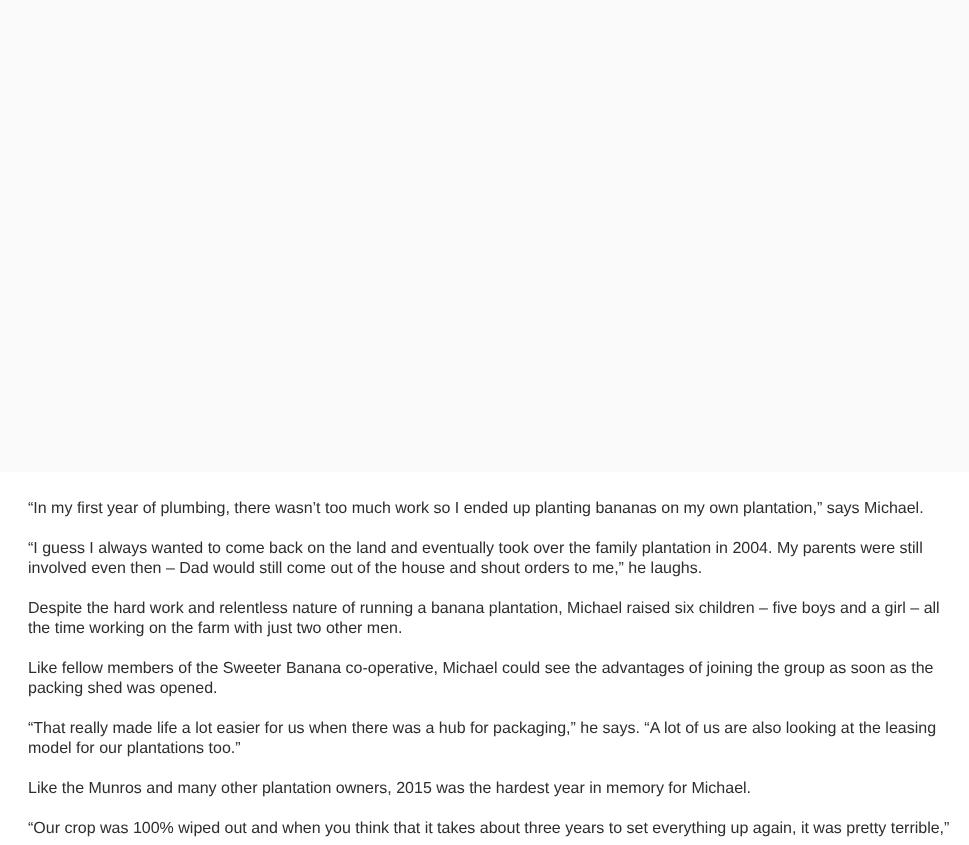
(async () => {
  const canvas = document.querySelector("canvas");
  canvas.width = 969;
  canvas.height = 845;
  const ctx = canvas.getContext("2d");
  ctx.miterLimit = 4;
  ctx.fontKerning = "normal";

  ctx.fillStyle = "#ffffff";
  ctx.fillRect(0, 0, 969, 845);
  ctx.fillStyle = "#fafafa";
  ctx.fillRect(0, 0, 969, 472);
  ctx.font = "16px Liberation Sans";
  ctx.fillStyle = "#2f2e2e";
  for (const [text, x, y] of [
    ["“In my first year of plumbing, there wasn’t too much work so I ended up planting bananas on my own plantation,” says Michael.", 28, 513],
    ["“I guess I always wanted to come back on the land and eventually took over the family plantation in 2004. My parents were still", 28, 553],
    ["involved even then – Dad would still come out of the house and shout orders to me,” he laughs.", 28, 573],
    ["Despite the hard work and relentless nature of running a banana plantation, Michael raised six children – five boys and a girl – all", 28, 613],
    ["the time working on the farm with just two other men.", 28, 633],
    ["Like fellow members of the Sweeter Banana co-operative, Michael could see the advantages of joining the group as soon as the", 28, 673],
    ["packing shed was opened.", 28, 693],
    ["“That really made life a lot easier for us when there was a hub for packaging,” he says. “A lot of us are also looking at the leasing", 28, 733],
    ["model for our plantations too.”", 28, 753],
    ["Like the Munros and many other plantation owners, 2015 was the hardest year in memory for Michael.", 28, 793],
    ["“Our crop was 100% wiped out and when you think that it takes about three years to set everything up again, it was pretty terrible,”", 28, 833],
  ]) {
    ctx.fillText(text, x, y);
  }
})();
